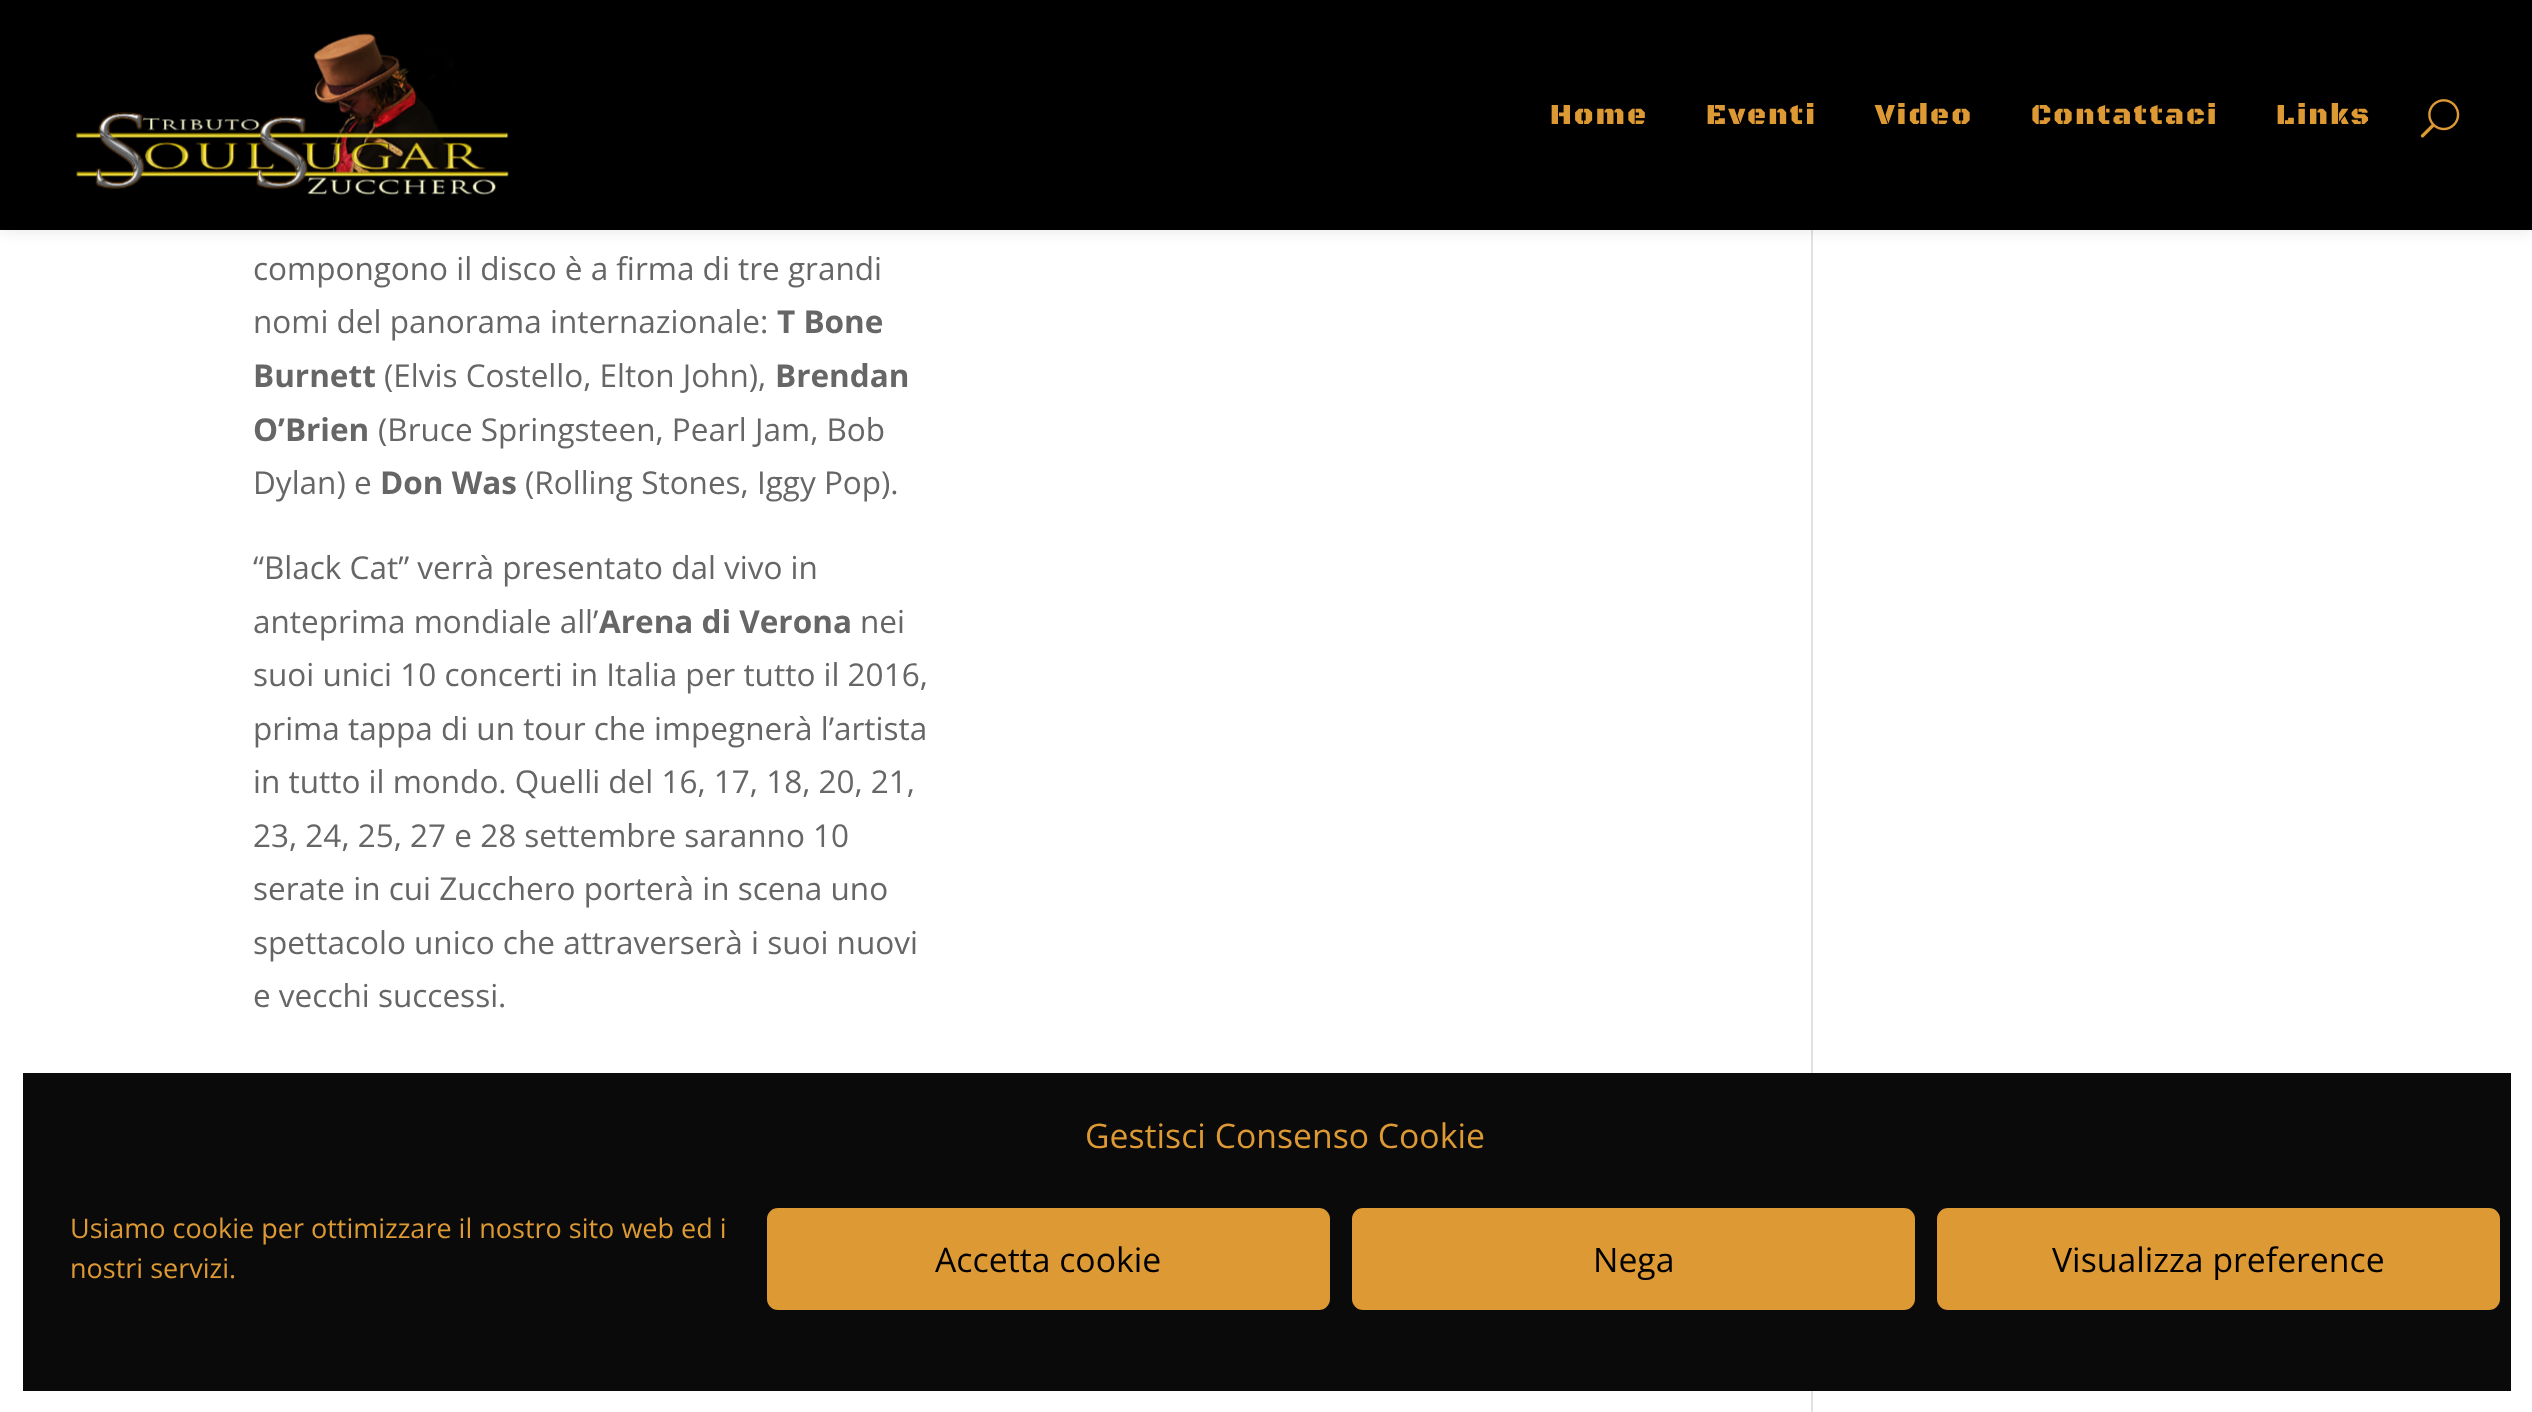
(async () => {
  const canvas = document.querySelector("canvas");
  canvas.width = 2532;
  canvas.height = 1412;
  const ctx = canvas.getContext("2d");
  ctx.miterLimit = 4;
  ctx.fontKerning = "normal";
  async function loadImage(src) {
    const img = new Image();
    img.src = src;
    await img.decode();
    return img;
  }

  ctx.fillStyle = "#ffffff";
  ctx.fillRect(0, 0, 2532, 1412);
  ctx.fillStyle = "#e2e2e2";
  ctx.fillRect(1811, 230, 2, 1182);
  ctx.fillStyle = "rgba(0, 0, 0, 0.1)";
  ctx.filter = "blur(8px)";
  ctx.beginPath();
  ctx.rect(0, 0, 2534, 230);
  ctx.fill();
  ctx.filter = "none";
  ctx.fillStyle = "#000000";
  ctx.fillRect(0, 0, 2532, 230);
  ctx.drawImage(await loadImage("img/1.png"), 76, 33, 433, 162);
  ctx.drawImage(await loadImage("img/2.png"), 2420, 99, 40, 39);
  ctx.fillStyle = "#0a0a0a";
  ctx.fillRect(23, 1073, 2488, 318);
  ctx.fillStyle = "#dd9933";
  ctx.beginPath();
  ctx.roundRect(768, 1209, 561, 100, 10);
  ctx.fill();
  ctx.strokeStyle = "#dd9933";
  ctx.lineWidth = 2;
  ctx.stroke();
  ctx.beginPath();
  ctx.roundRect(1353, 1209, 561, 100, 10);
  ctx.fill();
  ctx.stroke();
  ctx.beginPath();
  ctx.roundRect(1938, 1209, 561, 100, 10);
  ctx.fill();
  ctx.stroke();
  ctx.letterSpacing = "2.25px";
  ctx.font = "900 29.25px Black Ops One";
  for (const [text, x, y] of [
    ["Home", 1550, 124],
    ["Eventi", 1706, 124],
    ["Video", 1875, 124],
    ["Contattaci", 2031, 124],
    ["Links", 2276, 124],
  ]) {
    ctx.fillText(text, x, y);
  }
  ctx.letterSpacing = "0px";
  ctx.font = "31.5px Open Sans";
  ctx.fillStyle = "#666666";
  ctx.fillText("compongono il disco è a firma di tre grandi", 253, 280);
  ctx.fillText("nomi del panorama internazionale:", 253, 333);
  ctx.font = "bold 31.5px Open Sans";
  ctx.fillText("T Bone", 777, 333);
  ctx.fillText("Burnett", 253, 387);
  ctx.font = "31.5px Open Sans";
  ctx.fillText("(Elvis Costello, Elton John),", 384, 387);
  ctx.font = "bold 31.5px Open Sans";
  ctx.fillText("Brendan", 775, 387);
  ctx.fillText("O’Brien", 253, 441);
  ctx.font = "31.5px Open Sans";
  ctx.fillText("(Bruce Springsteen, Pearl Jam, Bob", 378, 441);
  ctx.fillText("Dylan) e", 253, 494);
  ctx.font = "bold 31.5px Open Sans";
  ctx.fillText("Don Was", 380, 494);
  ctx.font = "31.5px Open Sans";
  for (const [text, x, y] of [
    ["(Rolling Stones, Iggy Pop).", 525, 494],
    ["“Black Cat” verrà presentato dal vivo in", 253, 579],
    ["anteprima mondiale all’", 253, 633],
  ]) {
    ctx.fillText(text, x, y);
  }
  ctx.font = "bold 31.5px Open Sans";
  ctx.fillText("Arena di Verona", 599, 633);
  ctx.font = "31.5px Open Sans";
  for (const [text, x, y] of [
    ["nei", 860, 633],
    ["suoi unici 10 concerti in Italia per tutto il 2016,", 253, 686],
    ["prima tappa di un tour che impegnerà l’artista", 253, 740],
    ["in tutto il mondo. Quelli del 16, 17, 18, 20, 21,", 253, 793],
    ["23, 24, 25, 27 e 28 settembre saranno 10", 253, 847],
    ["serate in cui Zucchero porterà in scena uno", 253, 900],
    ["spettacolo unico che attraverserà i suoi nuovi", 253, 954],
    ["e vecchi successi.", 253, 1007],
  ]) {
    ctx.fillText(text, x, y);
  }
  ctx.font = "33.75px Open Sans";
  ctx.fillStyle = "#dd9933";
  ctx.fillText("Gestisci Consenso Cookie", 1085, 1148);
  ctx.font = "27px Open Sans";
  ctx.fillText("Usiamo cookie per ottimizzare il nostro sito web ed i", 70, 1238);
  ctx.fillText("nostri servizi.", 70, 1278);
  ctx.font = "33.75px Open Sans";
  ctx.fillStyle = "#000000";
  for (const [text, x, y] of [
    ["Accetta cookie", 935, 1272],
    ["Nega", 1593, 1272],
    ["Visualizza preference", 2052, 1272],
  ]) {
    ctx.fillText(text, x, y);
  }
})();
